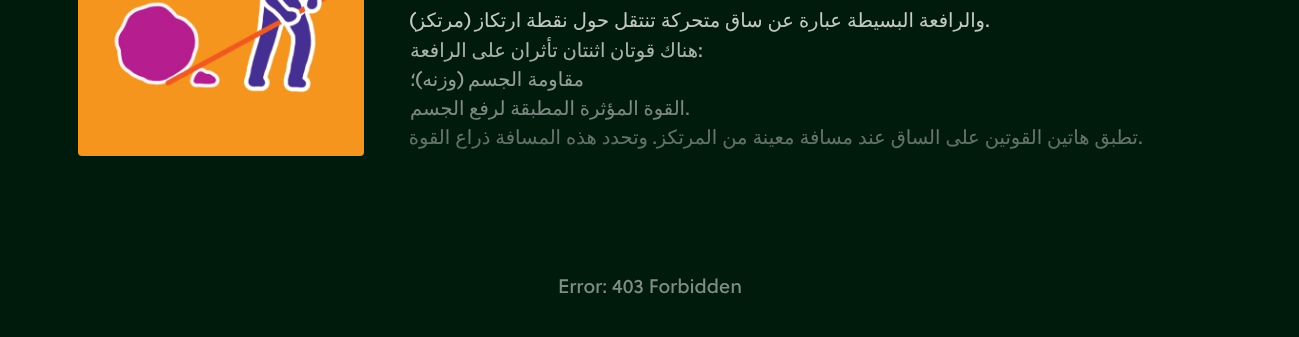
(async () => {
  const canvas = document.querySelector("canvas");
  canvas.width = 1299;
  canvas.height = 337;
  const ctx = canvas.getContext("2d");
  ctx.miterLimit = 4;
  ctx.fontKerning = "normal";
  async function loadImage(src) {
    const img = new Image();
    img.src = src;
    await img.decode();
    return img;
  }
  let gradient;

  ctx.fillStyle = "#001a0c";
  ctx.fillRect(0, 0, 1299, 337);
  ctx.drawImage(await loadImage("img/1.png"), 78, 0, 286, 156);
  ctx.font = "19.5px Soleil";
  ctx.fillStyle = "#ffffff";
  ctx.fillText(".", 985, 27);
  ctx.wordSpacing = "-1.25px";
  ctx.direction = "rtl";
  ctx.font = "19.5px DejaVu Sans";
  ctx.fillText("والرافعة البسيطة عبارة عن ساق متحركة تنتقل حول نقطة ارتكاز", 985, 27);
  ctx.wordSpacing = "0px";
  ctx.font = "19.5px Soleil";
  ctx.fillText("(", 471, 27);
  ctx.fillText(")", 416, 27);
  ctx.font = "19.5px DejaVu Sans";
  ctx.fillText("مرتكز", 464, 27);
  ctx.direction = "ltr";
  ctx.font = "19.5px Soleil";
  ctx.fillText(":", 698, 57);
  ctx.wordSpacing = "-1.5px";
  ctx.direction = "rtl";
  ctx.font = "19.5px DejaVu Sans";
  ctx.fillText("هناك قوتان اثنتان تأثران على الرافعة", 698, 57);
  ctx.wordSpacing = "-1px";
  ctx.fillText("مقاومة الجسم", 584, 86);
  ctx.wordSpacing = "0px";
  ctx.font = "19.5px Soleil";
  ctx.fillText("(", 464, 86);
  ctx.font = "19.5px DejaVu Sans";
  ctx.fillText("وزنه", 457, 86);
  ctx.font = "19.5px Soleil";
  ctx.fillText(")", 422, 86);
  ctx.font = "19.5px DejaVu Sans";
  ctx.fillText("؛", 416, 86);
  ctx.direction = "ltr";
  ctx.font = "19.5px Soleil";
  ctx.fillText(".", 685, 115);
  ctx.wordSpacing = "-1.5px";
  ctx.direction = "rtl";
  ctx.font = "19.5px DejaVu Sans";
  ctx.fillText("القوة المؤثرة المطبقة لرفع الجسم", 685, 115);
  ctx.wordSpacing = "0px";
  ctx.direction = "ltr";
  ctx.font = "19.5px Soleil";
  ctx.fillText(".", 1138, 144);
  ctx.wordSpacing = "-1.25px";
  ctx.direction = "rtl";
  ctx.font = "19.5px DejaVu Sans";
  ctx.fillText("تطبق هاتين القوتين على الساق عند مسافة معينة من المرتكز", 1138, 144);
  ctx.wordSpacing = "0px";
  ctx.font = "19.5px Soleil";
  ctx.fillText(".", 657, 144);
  ctx.wordSpacing = "-1.25px";
  ctx.font = "19.5px DejaVu Sans";
  ctx.fillText("وتحدد هذه المسافة ذراع القوة", 648, 144);
  gradient = ctx.createLinearGradient(815, 260, 815, -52);
  gradient.addColorStop(0, "#001a0c");
  gradient.addColorStop(1, "rgba(0, 26, 12, 0)");
  ctx.fillStyle = gradient;
  ctx.fillRect(409, 11, 733, 138);
  ctx.wordSpacing = "0px";
  ctx.direction = "ltr";
  ctx.font = "19.5px Soleil";
  ctx.fillStyle = "#808d86";
  ctx.fillText("Error: 403 Forbidden", 558, 293);
})();
